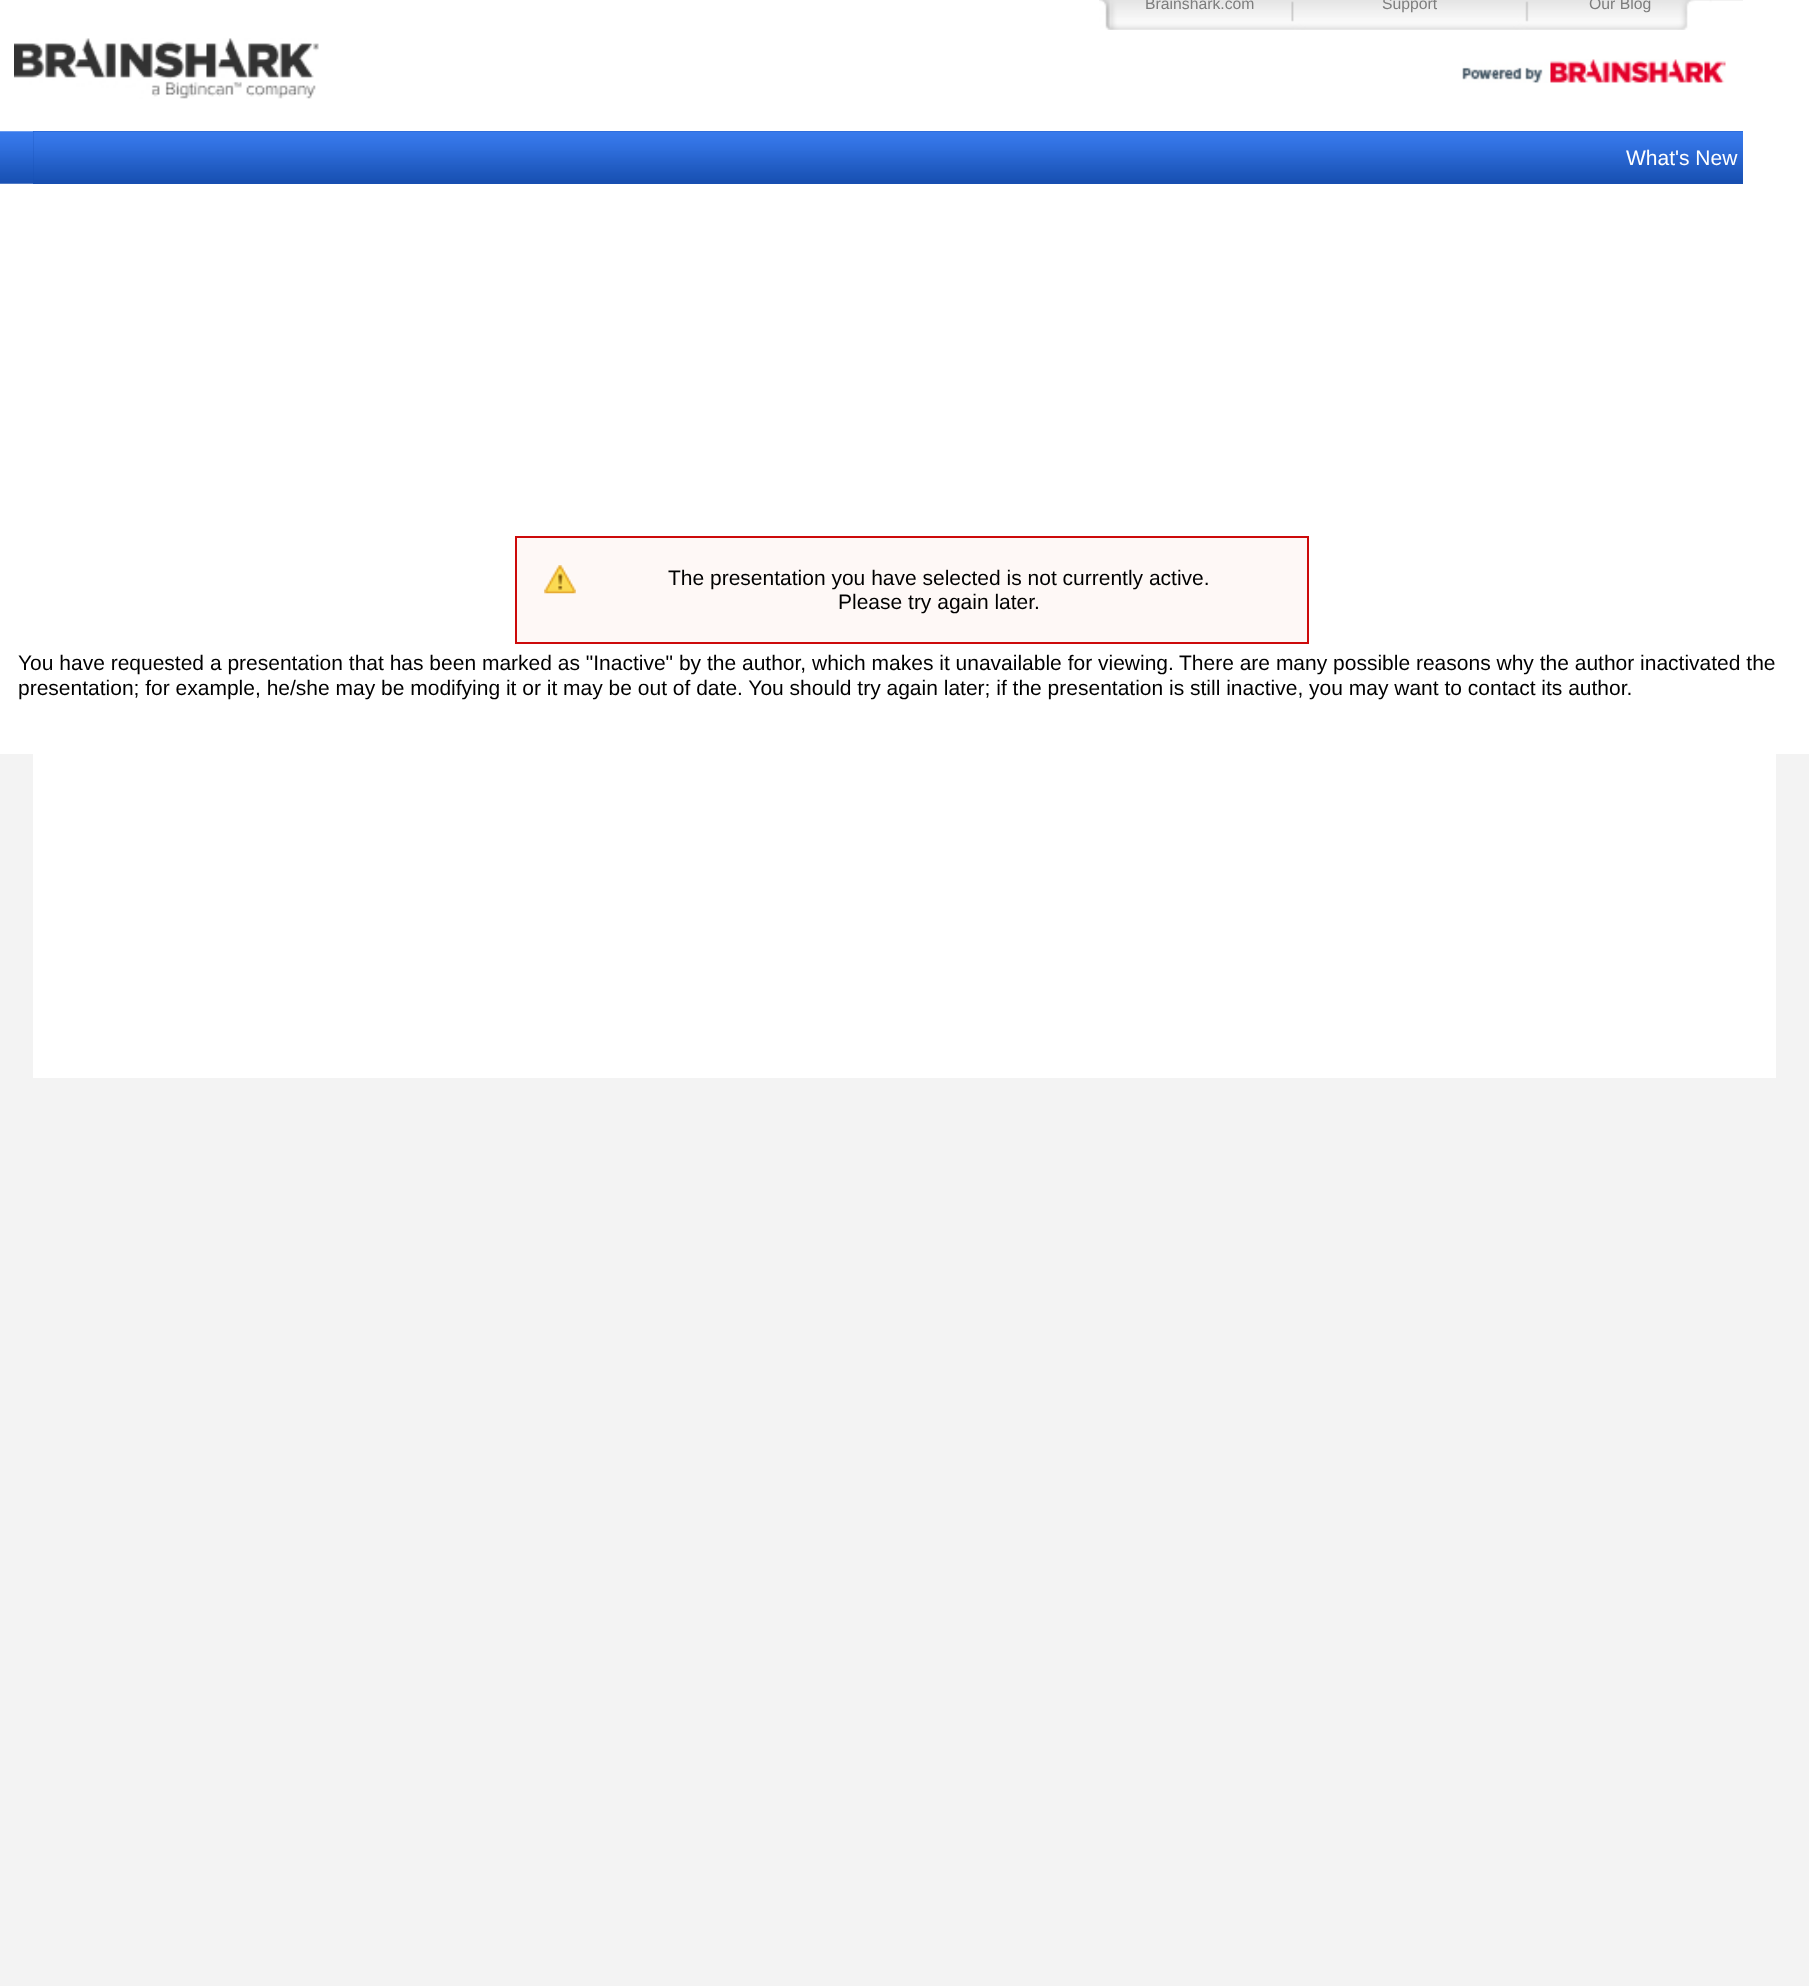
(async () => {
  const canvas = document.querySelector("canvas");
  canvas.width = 1809;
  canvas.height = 1986;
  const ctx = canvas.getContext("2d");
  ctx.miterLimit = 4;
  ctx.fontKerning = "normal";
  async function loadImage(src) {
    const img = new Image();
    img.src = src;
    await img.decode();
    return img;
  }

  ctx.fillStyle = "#f3f3f3";
  ctx.fillRect(0, 0, 1809, 1986);
  ctx.fillStyle = "#ffffff";
  ctx.fillRect(0, 0, 1809, 754);
  ctx.drawImage(await loadImage("img/1.png"), 1099, 0, 644, 30);
  ctx.drawImage(await loadImage("img/2.png"), 14, 38, 305, 61);
  ctx.drawImage(await loadImage("img/3.png"), 1462, 59, 264, 24);
  ctx.drawImage(await loadImage("img/4.png"), 0, 131, 33, 53);
  ctx.fillStyle = "#174fb1";
  ctx.fillRect(33, 131, 1710, 53);
  ctx.drawImage(await loadImage("img/5.png"), 33, 131, 1710, 49);
  ctx.fillStyle = "#fef8f6";
  ctx.fillRect(517, 538, 790, 104);
  ctx.drawImage(await loadImage("img/6.png"), 544, 565, 32, 29);
  ctx.strokeStyle = "#cd0a0a";
  ctx.lineWidth = 2;
  ctx.strokeRect(516, 537, 792, 106);
  ctx.fillStyle = "#ffffff";
  ctx.fillRect(33, 754, 1743, 324);
  ctx.font = "15.75px Liberation Sans";
  ctx.fillStyle = "#7d7d7d";
  for (const [text, x, y] of [
    ["Brainshark.com", 1145, 9],
    ["Support", 1382, 9],
    ["Our Blog", 1589, 9],
  ]) {
    ctx.fillText(text, x, y);
  }
  ctx.font = "21px Liberation Sans";
  ctx.fillStyle = "#ffffff";
  ctx.fillText("What's New", 1626, 165);
  ctx.fillStyle = "#000000";
  for (const [text, x, y] of [
    ["The presentation you have selected is not currently active.", 668, 585],
    ["Please try again later.", 838, 609],
    ["You have requested a presentation that has been marked as \"Inactive\" by the author, which makes it unavailable for viewing.", 18, 670],
    ["There are many possible reasons why the author inactivated the", 1179, 670],
    ["presentation; for example, he/she may be modifying it or it may be out of date. You should try again later; if the presentation is still inactive, you may want to contact its author.", 18, 695],
  ]) {
    ctx.fillText(text, x, y);
  }
})();
